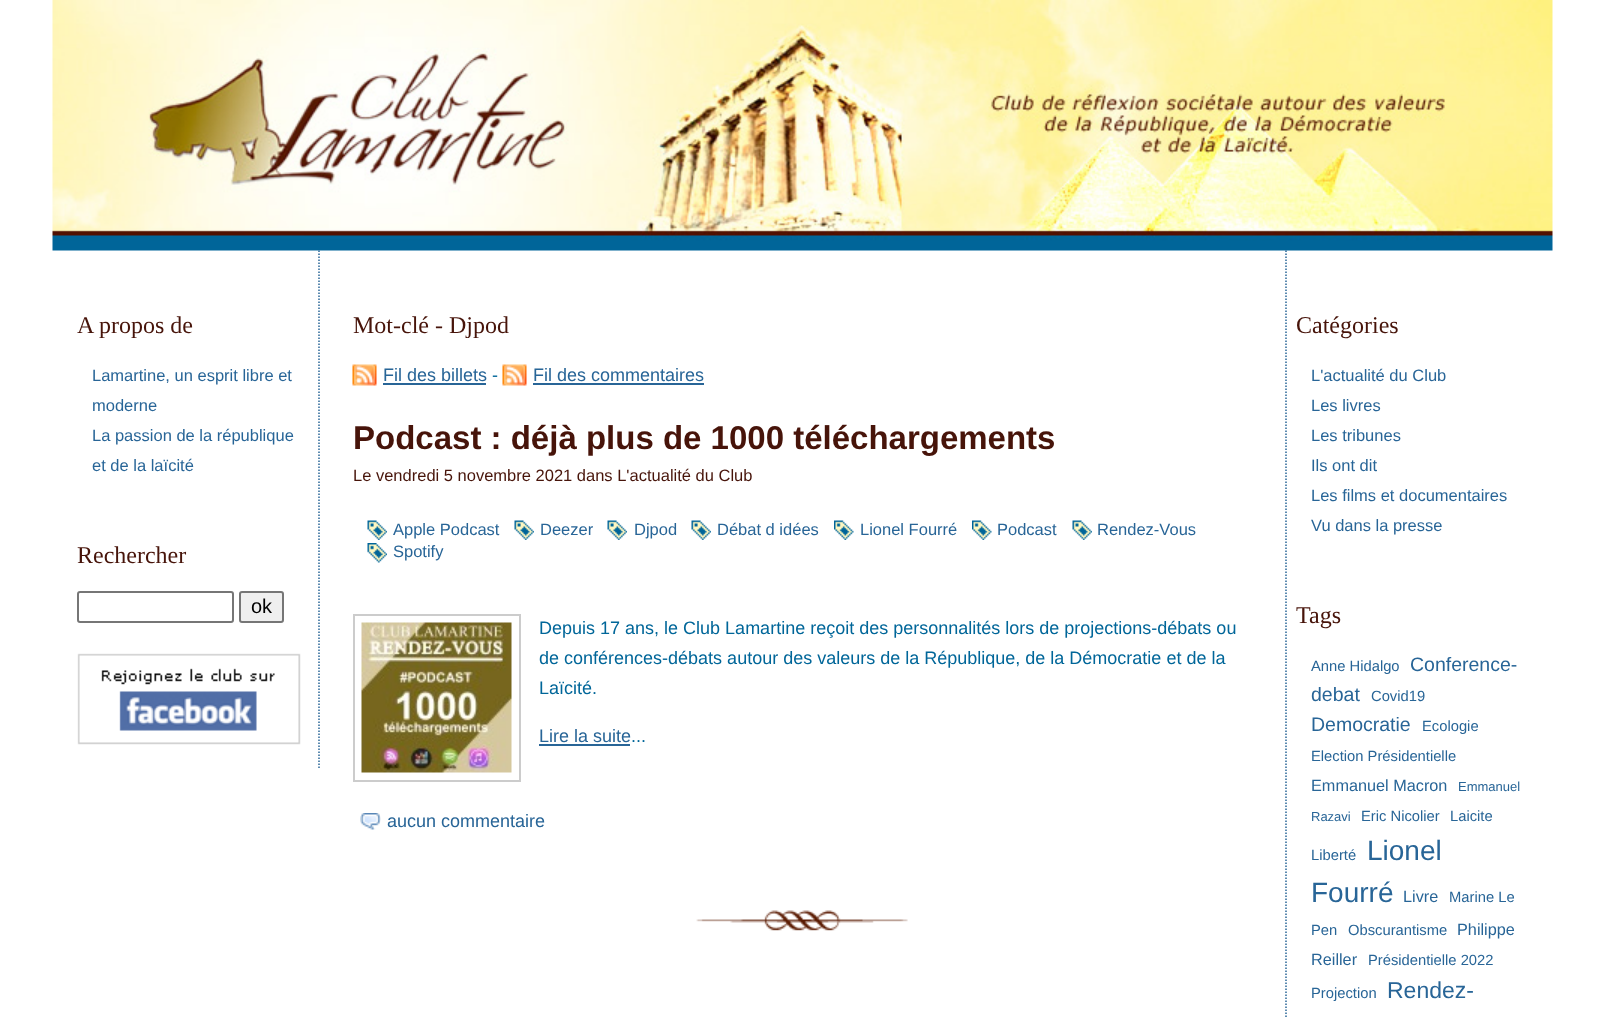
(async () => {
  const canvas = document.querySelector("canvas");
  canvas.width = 1605;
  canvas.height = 1017;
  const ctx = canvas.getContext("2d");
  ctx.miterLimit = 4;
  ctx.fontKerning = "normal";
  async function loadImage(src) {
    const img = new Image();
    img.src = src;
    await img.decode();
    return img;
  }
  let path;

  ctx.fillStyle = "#ffffff";
  ctx.fillRect(0, 0, 1605, 1017);
  ctx.drawImage(await loadImage("img/1.png"), 52, 0, 1501, 251);
  path = new Path2D("M319 250.5V768");
  ctx.strokeStyle = "#286597";
  ctx.lineWidth = 1.5;
  ctx.setLineDash([1.5, 1.5]);
  ctx.stroke(path);
  ctx.beginPath();
  ctx.roundRect(78, 592, 155, 30, 2);
  ctx.strokeStyle = "#767676";
  ctx.lineWidth = 2;
  ctx.setLineDash([]);
  ctx.stroke();
  ctx.fillStyle = "#efefef";
  ctx.beginPath();
  ctx.roundRect(240, 592, 43, 30, 2);
  ctx.fill();
  ctx.stroke();
  ctx.drawImage(await loadImage("img/2.png"), 77, 653, 224, 92);
  path = new Path2D("M1286 250.5V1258.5");
  ctx.strokeStyle = "#286597";
  ctx.lineWidth = 1.5;
  ctx.setLineDash([1.5, 1.5]);
  ctx.stroke(path);
  ctx.drawImage(await loadImage("img/3.png"), 352, 364, 25, 22);
  ctx.fillStyle = "#286597";
  ctx.fillRect(383, 383, 103, 2);
  ctx.drawImage(await loadImage("img/4.png"), 502, 364, 25, 22);
  ctx.fillRect(533, 383, 171, 2);
  ctx.drawImage(await loadImage("img/5.png"), 696, 910, 212, 21);
  ctx.drawImage(await loadImage("img/6.png"), 367, 520, 20, 20);
  ctx.drawImage(await loadImage("img/7.png"), 514, 520, 20, 20);
  ctx.drawImage(await loadImage("img/6.png"), 607, 520, 20, 20);
  ctx.drawImage(await loadImage("img/6.png"), 691, 520, 20, 20);
  ctx.drawImage(await loadImage("img/8.png"), 834, 520, 20, 20);
  ctx.drawImage(await loadImage("img/8.png"), 972, 520, 20, 20);
  ctx.drawImage(await loadImage("img/9.png"), 1072, 520, 20, 20);
  ctx.drawImage(await loadImage("img/10.png"), 367, 543, 20, 20);
  ctx.strokeStyle = "#cccccc";
  ctx.lineWidth = 2;
  ctx.setLineDash([]);
  ctx.strokeRect(354, 615, 166, 166);
  ctx.drawImage(await loadImage("img/11.png"), 361, 622, 151, 151);
  ctx.fillRect(539, 744, 91, 2);
  ctx.drawImage(await loadImage("img/12.png"), 360, 813, 21, 17);
  ctx.font = "24px Liberation Serif";
  ctx.fillStyle = "#47140a";
  ctx.fillText("A propos de", 77, 333);
  ctx.font = "16.5px Liberation Sans";
  ctx.fillStyle = "#286597";
  for (const [text, x, y] of [
    ["Lamartine, un esprit libre et", 92, 381],
    ["moderne", 92, 411],
    ["La passion de la république", 92, 441],
    ["et de la laïcité", 92, 471],
  ]) {
    ctx.fillText(text, x, y);
  }
  ctx.font = "24px Liberation Serif";
  ctx.fillStyle = "#47140a";
  ctx.fillText("Rechercher", 77, 563);
  ctx.font = "20px Liberation Sans";
  ctx.fillStyle = "#000000";
  ctx.fillText("ok", 251, 613);
  ctx.font = "24px Liberation Serif";
  ctx.fillStyle = "#47140a";
  ctx.fillText("Catégories", 1296, 333);
  ctx.font = "16.5px Liberation Sans";
  ctx.fillStyle = "#286597";
  for (const [text, x, y] of [
    ["L'actualité du Club", 1311, 381],
    ["Les livres", 1311, 411],
    ["Les tribunes", 1311, 441],
    ["Ils ont dit", 1311, 471],
    ["Les films et documentaires", 1311, 501],
    ["Vu dans la presse", 1311, 531],
  ]) {
    ctx.fillText(text, x, y);
  }
  ctx.font = "24px Liberation Serif";
  ctx.fillStyle = "#47140a";
  ctx.fillText("Tags", 1296, 623);
  ctx.font = "14.75px Liberation Sans";
  ctx.fillStyle = "#286597";
  ctx.fillText("Anne Hidalgo", 1311, 671);
  ctx.font = "19.5px Liberation Sans";
  ctx.fillText("Conference-", 1410, 671);
  ctx.fillText("debat", 1311, 701);
  ctx.font = "14.75px Liberation Sans";
  ctx.fillText("Covid19", 1371, 701);
  ctx.font = "19.5px Liberation Sans";
  ctx.fillText("Democratie", 1311, 731);
  ctx.font = "14.75px Liberation Sans";
  ctx.fillText("Ecologie", 1422, 731);
  ctx.fillText("Election Présidentielle", 1311, 761);
  ctx.font = "16.25px Liberation Sans";
  ctx.fillText("Emmanuel Macron", 1311, 791);
  ctx.font = "13px Liberation Sans";
  ctx.fillText("Emmanuel", 1458, 791);
  ctx.fillText("Razavi", 1311, 821);
  ctx.font = "14.75px Liberation Sans";
  for (const [text, x, y] of [
    ["Eric Nicolier", 1361, 821],
    ["Laicite", 1450, 821],
    ["Liberté", 1311, 860],
  ]) {
    ctx.fillText(text, x, y);
  }
  ctx.font = "28px Liberation Sans";
  ctx.fillText("Lionel", 1367, 860);
  ctx.fillText("Fourré", 1311, 902);
  ctx.font = "16.25px Liberation Sans";
  ctx.fillText("Livre", 1403, 902);
  ctx.font = "14.75px Liberation Sans";
  for (const [text, x, y] of [
    ["Marine Le", 1449, 902],
    ["Pen", 1311, 935],
    ["Obscurantisme", 1348, 935],
  ]) {
    ctx.fillText(text, x, y);
  }
  ctx.font = "16.25px Liberation Sans";
  ctx.fillText("Philippe", 1457, 935);
  ctx.fillText("Reiller", 1311, 965);
  ctx.font = "14.75px Liberation Sans";
  ctx.fillText("Présidentielle 2022", 1368, 965);
  ctx.fillText("Projection", 1311, 998);
  ctx.font = "23px Liberation Sans";
  ctx.fillText("Rendez-", 1387, 998);
  ctx.font = "24px Liberation Serif";
  ctx.fillStyle = "#47140a";
  ctx.fillText("Mot-clé - Djpod", 353, 333);
  ctx.font = "18px Liberation Sans";
  ctx.fillStyle = "#286597";
  ctx.fillText("Fil des billets", 383, 381);
  ctx.fillStyle = "#006699";
  ctx.fillText("-", 492, 381);
  ctx.fillStyle = "#286597";
  ctx.fillText("Fil des commentaires", 533, 381);
  ctx.font = "bold 33px Liberation Sans";
  ctx.fillStyle = "#47140a";
  ctx.fillText("Podcast : déjà plus de 1000 téléchargements", 353, 449);
  ctx.font = "16.5px Liberation Sans";
  ctx.fillText("Le vendredi 5 novembre 2021 dans L'actualité du Club", 353, 481);
  ctx.fillStyle = "#286597";
  for (const [text, x, y] of [
    ["Apple Podcast", 393, 535],
    ["Deezer", 540, 535],
    ["Djpod", 634, 535],
    ["Débat d idées", 717, 535],
    ["Lionel Fourré", 860, 535],
    ["Podcast", 997, 535],
    ["Rendez-Vous", 1097, 535],
    ["Spotify", 393, 557],
  ]) {
    ctx.fillText(text, x, y);
  }
  ctx.font = "18px Liberation Sans";
  ctx.fillStyle = "#006699";
  for (const [text, x, y] of [
    ["Depuis 17 ans, le Club Lamartine reçoit des personnalités lors de projections-débats ou", 539, 634],
    ["de conférences-débats autour des valeurs de la République, de la Démocratie et de la", 539, 664],
    ["Laïcité.", 539, 694],
  ]) {
    ctx.fillText(text, x, y);
  }
  ctx.fillStyle = "#286597";
  ctx.fillText("Lire la suite", 539, 742);
  ctx.fillStyle = "#006699";
  ctx.fillText("...", 631, 742);
  ctx.fillStyle = "#286597";
  ctx.fillText("aucun commentaire", 387, 827);
})();
